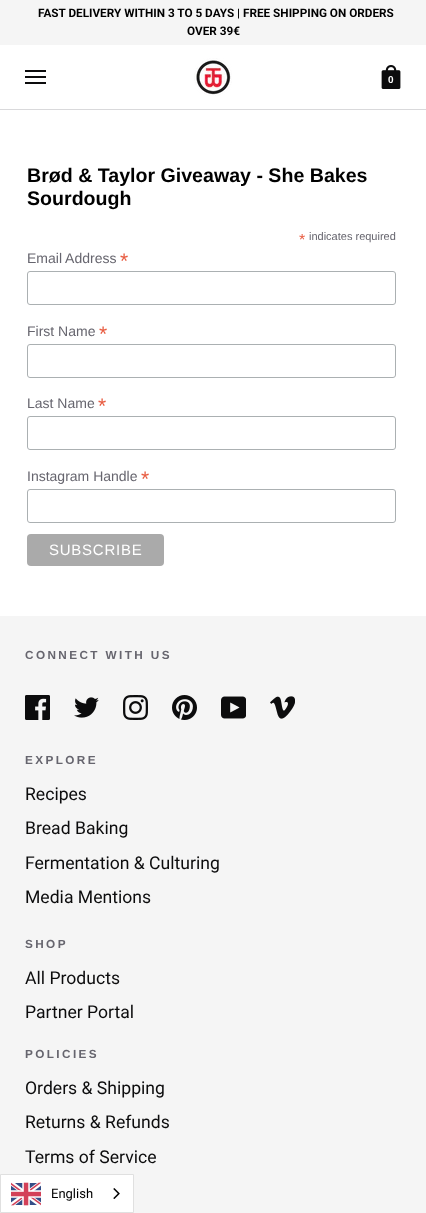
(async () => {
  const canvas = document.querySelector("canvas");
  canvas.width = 426;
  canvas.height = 1213;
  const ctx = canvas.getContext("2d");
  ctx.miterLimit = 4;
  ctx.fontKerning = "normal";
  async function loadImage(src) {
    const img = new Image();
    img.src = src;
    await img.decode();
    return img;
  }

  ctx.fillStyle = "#ffffff";
  ctx.fillRect(0, 0, 426, 1213);
  for (const [x, y, w, h, color] of [
    [0, 0, 426, 45, "#f5f5f5"],
    [0, 109, 426, 1, "#d9d9db"],
    [25, 70, 21, 2, "#0c0c0d"],
    [25, 76, 21, 2, "#0c0c0d"],
    [25, 82, 21, 2, "#0c0c0d"],
  ]) {
    ctx.fillStyle = color;
    ctx.fillRect(x, y, w, h);
  }
  ctx.drawImage(await loadImage("img/1.png"), 194, 58, 38, 38);
  ctx.drawImage(await loadImage("img/2.png"), 381, 65, 20, 24);
  ctx.beginPath();
  ctx.roundRect(27.5, 271.5, 368, 33, 2.5);
  ctx.strokeStyle = "#abb0b2";
  ctx.stroke();
  ctx.beginPath();
  ctx.roundRect(27.5, 344.5, 368, 33, 2.5);
  ctx.stroke();
  ctx.beginPath();
  ctx.roundRect(27.5, 416.5, 368, 33, 2.5);
  ctx.stroke();
  ctx.beginPath();
  ctx.roundRect(27.5, 489.5, 368, 33, 2.5);
  ctx.stroke();
  ctx.fillStyle = "#aaaaaa";
  ctx.beginPath();
  ctx.roundRect(27, 534, 137, 32, 4);
  ctx.fill();
  ctx.fillStyle = "#f5f5f5";
  ctx.fillRect(0, 616, 426, 597);
  ctx.drawImage(await loadImage("img/3.png"), 25, 695, 25, 25);
  ctx.drawImage(await loadImage("img/4.png"), 74, 697, 25, 21);
  ctx.drawImage(await loadImage("img/5.png"), 123, 695, 25, 25);
  ctx.drawImage(await loadImage("img/6.png"), 172, 695, 25, 25);
  ctx.drawImage(await loadImage("img/7.png"), 221, 696, 25, 23);
  ctx.drawImage(await loadImage("img/8.png"), 270, 696, 25, 23);
  ctx.fillStyle = "#ffffff";
  ctx.beginPath();
  ctx.rect(0.5, 1174.5, 133, 38);
  ctx.fill();
  ctx.strokeStyle = "#e0e0e0";
  ctx.stroke();
  ctx.drawImage(await loadImage("img/9.png"), 11, 1182, 30, 24);
  ctx.drawImage(await loadImage("img/10.png"), 113, 1188, 7, 11);
  ctx.font = "bold 11.75px Roboto";
  ctx.fillStyle = "#000000";
  ctx.fillText("FAST DELIVERY WITHIN 3 TO 5 DAYS | FREE SHIPPING ON ORDERS", 38, 17);
  ctx.fillText("OVER 39€", 187, 35);
  ctx.font = "bold 10px Liberation Sans";
  ctx.fillStyle = "#ffffff";
  ctx.fillText("0", 388, 83);
  ctx.font = "bold 19.6px Liberation Sans";
  ctx.fillStyle = "#000000";
  ctx.fillText("Brød & Taylor Giveaway - She Bakes", 27, 182);
  ctx.fillText("Sourdough", 27, 205);
  ctx.font = "16px Liberation Sans";
  ctx.fillStyle = "#e85c41";
  ctx.fillText("*", 299, 245);
  ctx.font = "11px Liberation Sans";
  ctx.fillStyle = "#66656e";
  ctx.fillText("indicates required", 309, 240);
  ctx.font = "14px Liberation Sans";
  ctx.fillText("Email Address", 27, 263);
  ctx.font = "21px Liberation Sans";
  ctx.fillStyle = "#e85c41";
  ctx.fillText("*", 120, 268);
  ctx.font = "14px Liberation Sans";
  ctx.fillStyle = "#66656e";
  ctx.fillText("First Name", 27, 336);
  ctx.font = "21px Liberation Sans";
  ctx.fillStyle = "#e85c41";
  ctx.fillText("*", 99, 341);
  ctx.font = "14px Liberation Sans";
  ctx.fillStyle = "#66656e";
  ctx.fillText("Last Name", 27, 408);
  ctx.font = "21px Liberation Sans";
  ctx.fillStyle = "#e85c41";
  ctx.fillText("*", 98, 413);
  ctx.font = "14px Liberation Sans";
  ctx.fillStyle = "#66656e";
  ctx.fillText("Instagram Handle", 27, 481);
  ctx.font = "21px Liberation Sans";
  ctx.fillStyle = "#e85c41";
  ctx.fillText("*", 141, 486);
  ctx.letterSpacing = "0.75px";
  ctx.font = "15px Liberation Sans";
  ctx.fillStyle = "#ffffff";
  ctx.fillText("SUBSCRIBE", 49, 555);
  ctx.letterSpacing = "2.4px";
  ctx.font = "bold 11.75px Liberation Sans";
  ctx.fillStyle = "#66656e";
  ctx.fillText("CONNECT WITH US", 25, 659);
  ctx.fillText("EXPLORE", 25, 764);
  ctx.letterSpacing = "0px";
  ctx.font = "17.6px Roboto";
  ctx.fillStyle = "#0c0c0d";
  for (const [text, x, y] of [
    ["Recipes", 25, 800],
    ["Bread Baking", 25, 834],
    ["Fermentation & Culturing", 25, 869],
    ["Media Mentions", 25, 903],
  ]) {
    ctx.fillText(text, x, y);
  }
  ctx.letterSpacing = "2.4px";
  ctx.font = "bold 11.75px Liberation Sans";
  ctx.fillStyle = "#66656e";
  ctx.fillText("SHOP", 25, 948);
  ctx.letterSpacing = "0px";
  ctx.font = "17.6px Roboto";
  ctx.fillStyle = "#0c0c0d";
  ctx.fillText("All Products", 25, 984);
  ctx.fillText("Partner Portal", 25, 1018);
  ctx.letterSpacing = "2.4px";
  ctx.font = "bold 11.75px Liberation Sans";
  ctx.fillStyle = "#66656e";
  ctx.fillText("POLICIES", 25, 1058);
  ctx.letterSpacing = "0px";
  ctx.font = "17.6px Roboto";
  ctx.fillStyle = "#0c0c0d";
  for (const [text, x, y] of [
    ["Orders & Shipping", 25, 1094],
    ["Returns & Refunds", 25, 1128],
    ["Terms of Service", 25, 1163],
  ]) {
    ctx.fillText(text, x, y);
  }
  ctx.font = "13px Roboto";
  ctx.fillStyle = "#000000";
  ctx.fillText("English", 51, 1198);
})();
